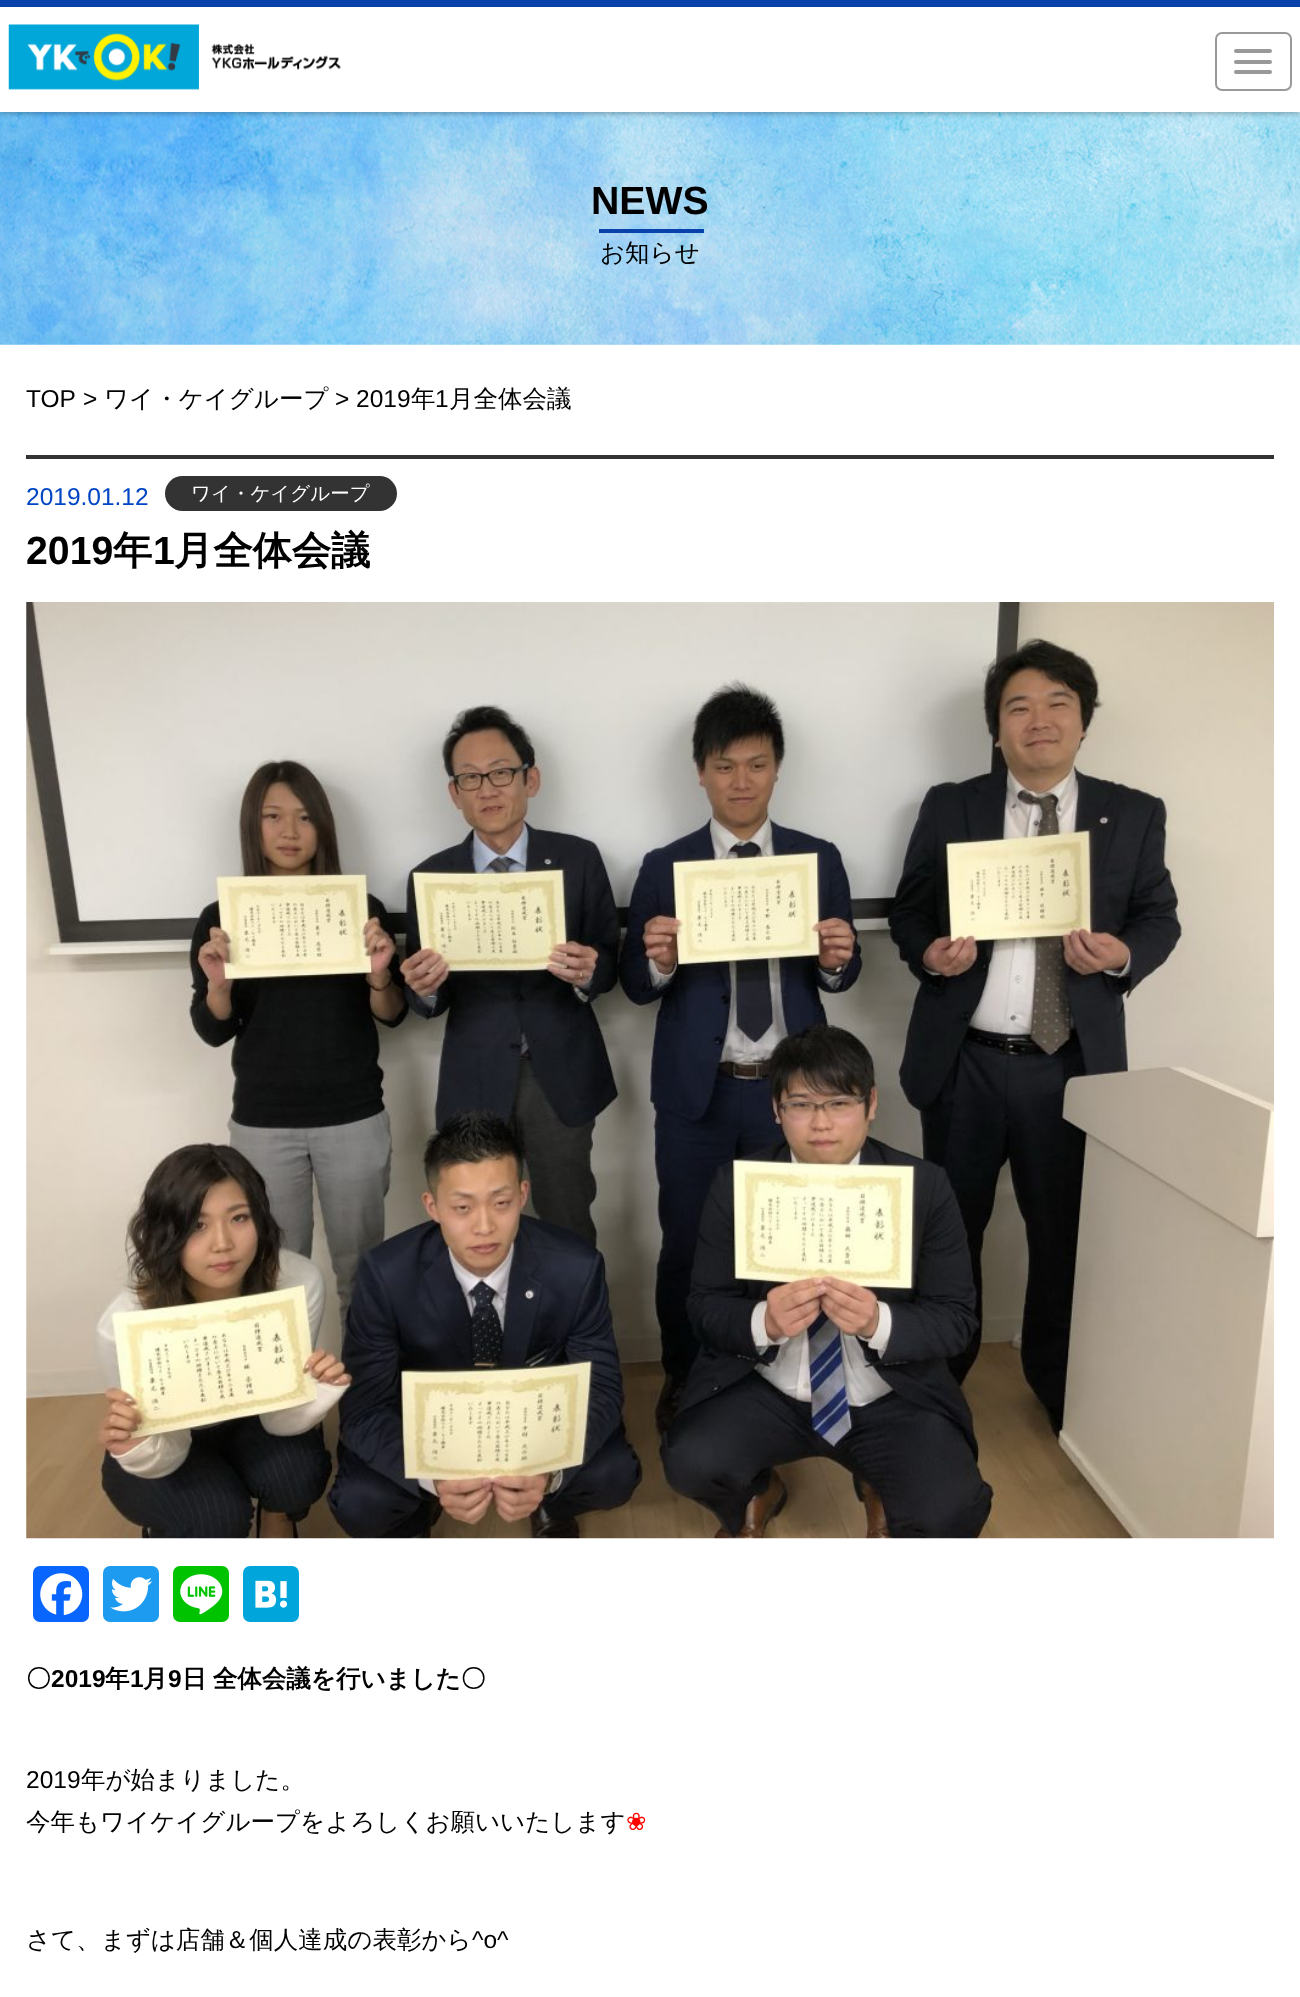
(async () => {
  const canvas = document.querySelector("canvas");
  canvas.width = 1300;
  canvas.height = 1997;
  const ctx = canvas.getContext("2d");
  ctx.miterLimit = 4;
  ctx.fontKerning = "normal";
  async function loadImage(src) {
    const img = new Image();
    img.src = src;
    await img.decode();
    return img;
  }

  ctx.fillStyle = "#ffffff";
  ctx.fillRect(0, 0, 1300, 1997);
  ctx.drawImage(await loadImage("img/2.png"), 0, 112, 1300, 233);
  ctx.fillStyle = "rgba(0, 0, 0, 0.25)";
  ctx.filter = "blur(2.5px)";
  ctx.beginPath();
  ctx.rect(0, 2, 1300, 112);
  ctx.fill();
  ctx.filter = "none";
  ctx.fillStyle = "#ffffff";
  ctx.fillRect(0, 7, 1300, 105);
  ctx.fillStyle = "#0942aa";
  ctx.fillRect(0, 0, 1300, 7);
  ctx.drawImage(await loadImage("img/1.png"), 8, 24, 333, 66);
  ctx.beginPath();
  ctx.roundRect(1216, 33, 75, 57, 6);
  ctx.strokeStyle = "#999999";
  ctx.lineWidth = 2;
  ctx.stroke();
  ctx.fillStyle = "#999999";
  ctx.beginPath();
  ctx.roundRect(1234, 49, 38, 4, 2);
  ctx.fill();
  ctx.beginPath();
  ctx.roundRect(1234, 60, 38, 4, 2);
  ctx.fill();
  ctx.beginPath();
  ctx.roundRect(1234, 70, 38, 4, 2);
  ctx.fill();
  ctx.fillStyle = "#0942aa";
  ctx.fillRect(599, 229, 105, 4);
  ctx.fillStyle = "#333333";
  ctx.fillRect(26, 455, 1248, 4);
  ctx.beginPath();
  ctx.roundRect(165, 476, 232, 35, 17.5);
  ctx.fill();
  ctx.drawImage(await loadImage("img/3.png"), 26, 602, 1248, 937);
  ctx.fillStyle = "#0866ff";
  ctx.beginPath();
  ctx.roundRect(33, 1566, 56, 56, 7);
  ctx.fill();
  ctx.drawImage(await loadImage("img/4.png"), 40, 1573, 43, 42);
  ctx.fillStyle = "#1d9bf0";
  ctx.beginPath();
  ctx.roundRect(103, 1566, 56, 56, 7);
  ctx.fill();
  ctx.drawImage(await loadImage("img/5.png"), 110, 1577, 43, 35);
  ctx.fillStyle = "#00c300";
  ctx.beginPath();
  ctx.roundRect(173, 1566, 56, 56, 7);
  ctx.fill();
  ctx.drawImage(await loadImage("img/6.png"), 180, 1574, 43, 41);
  ctx.fillStyle = "#00a6db";
  ctx.beginPath();
  ctx.roundRect(243, 1566, 56, 56, 7);
  ctx.fill();
  ctx.drawImage(await loadImage("img/7.png"), 255, 1580, 32, 28);
  ctx.font = "bold 39.25px Liberation Sans";
  ctx.fillStyle = "#000000";
  ctx.fillText("NEWS", 591, 214);
  ctx.font = "500 24.5px WenQuanYi Zen Hei";
  ctx.fillText("お知らせ", 600, 261);
  ctx.font = "24.5px Liberation Sans";
  ctx.fillText("TOP", 26, 407);
  ctx.fillText(">", 83, 407);
  ctx.font = "500 24.5px WenQuanYi Zen Hei";
  ctx.fillText("ワイ・ケイグループ", 104, 407);
  ctx.font = "24.5px Liberation Sans";
  ctx.fillText("> 2019", 335, 407);
  ctx.font = "500 24.5px WenQuanYi Zen Hei";
  ctx.fillText("年", 411, 407);
  ctx.font = "24.5px Liberation Sans";
  ctx.fillText("1", 435, 407);
  ctx.font = "500 24.5px WenQuanYi Zen Hei";
  ctx.fillText("月全体会議", 449, 407);
  ctx.font = "24.5px Liberation Sans";
  ctx.fillStyle = "#0045c4";
  ctx.fillText("2019.01.12", 26, 505);
  ctx.font = "500 19.5px WenQuanYi Zen Hei";
  ctx.fillStyle = "#ffffff";
  ctx.fillText("ワイ・ケイグループ", 191, 500);
  ctx.font = "bold 39.25px Liberation Sans";
  ctx.fillStyle = "#000000";
  ctx.fillText("2019", 26, 564);
  ctx.font = "bold 39.25px WenQuanYi Zen Hei";
  ctx.fillText("年", 113, 564);
  ctx.font = "bold 39.25px Liberation Sans";
  ctx.fillText("1", 153, 564);
  ctx.font = "bold 39.25px WenQuanYi Zen Hei";
  ctx.fillText("月全体会議", 174, 564);
  ctx.font = "bold 24.5px WenQuanYi Zen Hei";
  ctx.fillText("〇", 26, 1687);
  ctx.font = "bold 24.5px Liberation Sans";
  ctx.fillText("2019", 51, 1687);
  ctx.font = "bold 24.5px WenQuanYi Zen Hei";
  ctx.fillText("年", 105, 1687);
  ctx.font = "bold 24.5px Liberation Sans";
  ctx.fillText("1", 130, 1687);
  ctx.font = "bold 24.5px WenQuanYi Zen Hei";
  ctx.fillText("月", 143, 1687);
  ctx.font = "bold 24.5px Liberation Sans";
  ctx.fillText("9", 168, 1687);
  ctx.wordSpacing = "-1px";
  ctx.font = "bold 24.5px WenQuanYi Zen Hei";
  ctx.fillText("日 全体会議を行いました〇", 182, 1687);
  ctx.wordSpacing = "0px";
  ctx.font = "24.5px Liberation Sans";
  ctx.fillText("2019", 26, 1788);
  ctx.font = "500 24.5px WenQuanYi Zen Hei";
  ctx.fillText("年が始まりました。", 81, 1788);
  ctx.fillText("今年もワイケイグループをよろしくお願いいたします", 26, 1830);
  ctx.font = "24.5px DejaVu Sans";
  ctx.fillStyle = "#ff0000";
  ctx.fillText("❀", 626, 1830);
  ctx.font = "500 24.5px WenQuanYi Zen Hei";
  ctx.fillStyle = "#000000";
  ctx.fillText("さて、まずは店舗＆個人達成の表彰から", 26, 1948);
  ctx.font = "24.5px Liberation Sans";
  ctx.fillText("^o^", 472, 1948);
})();
